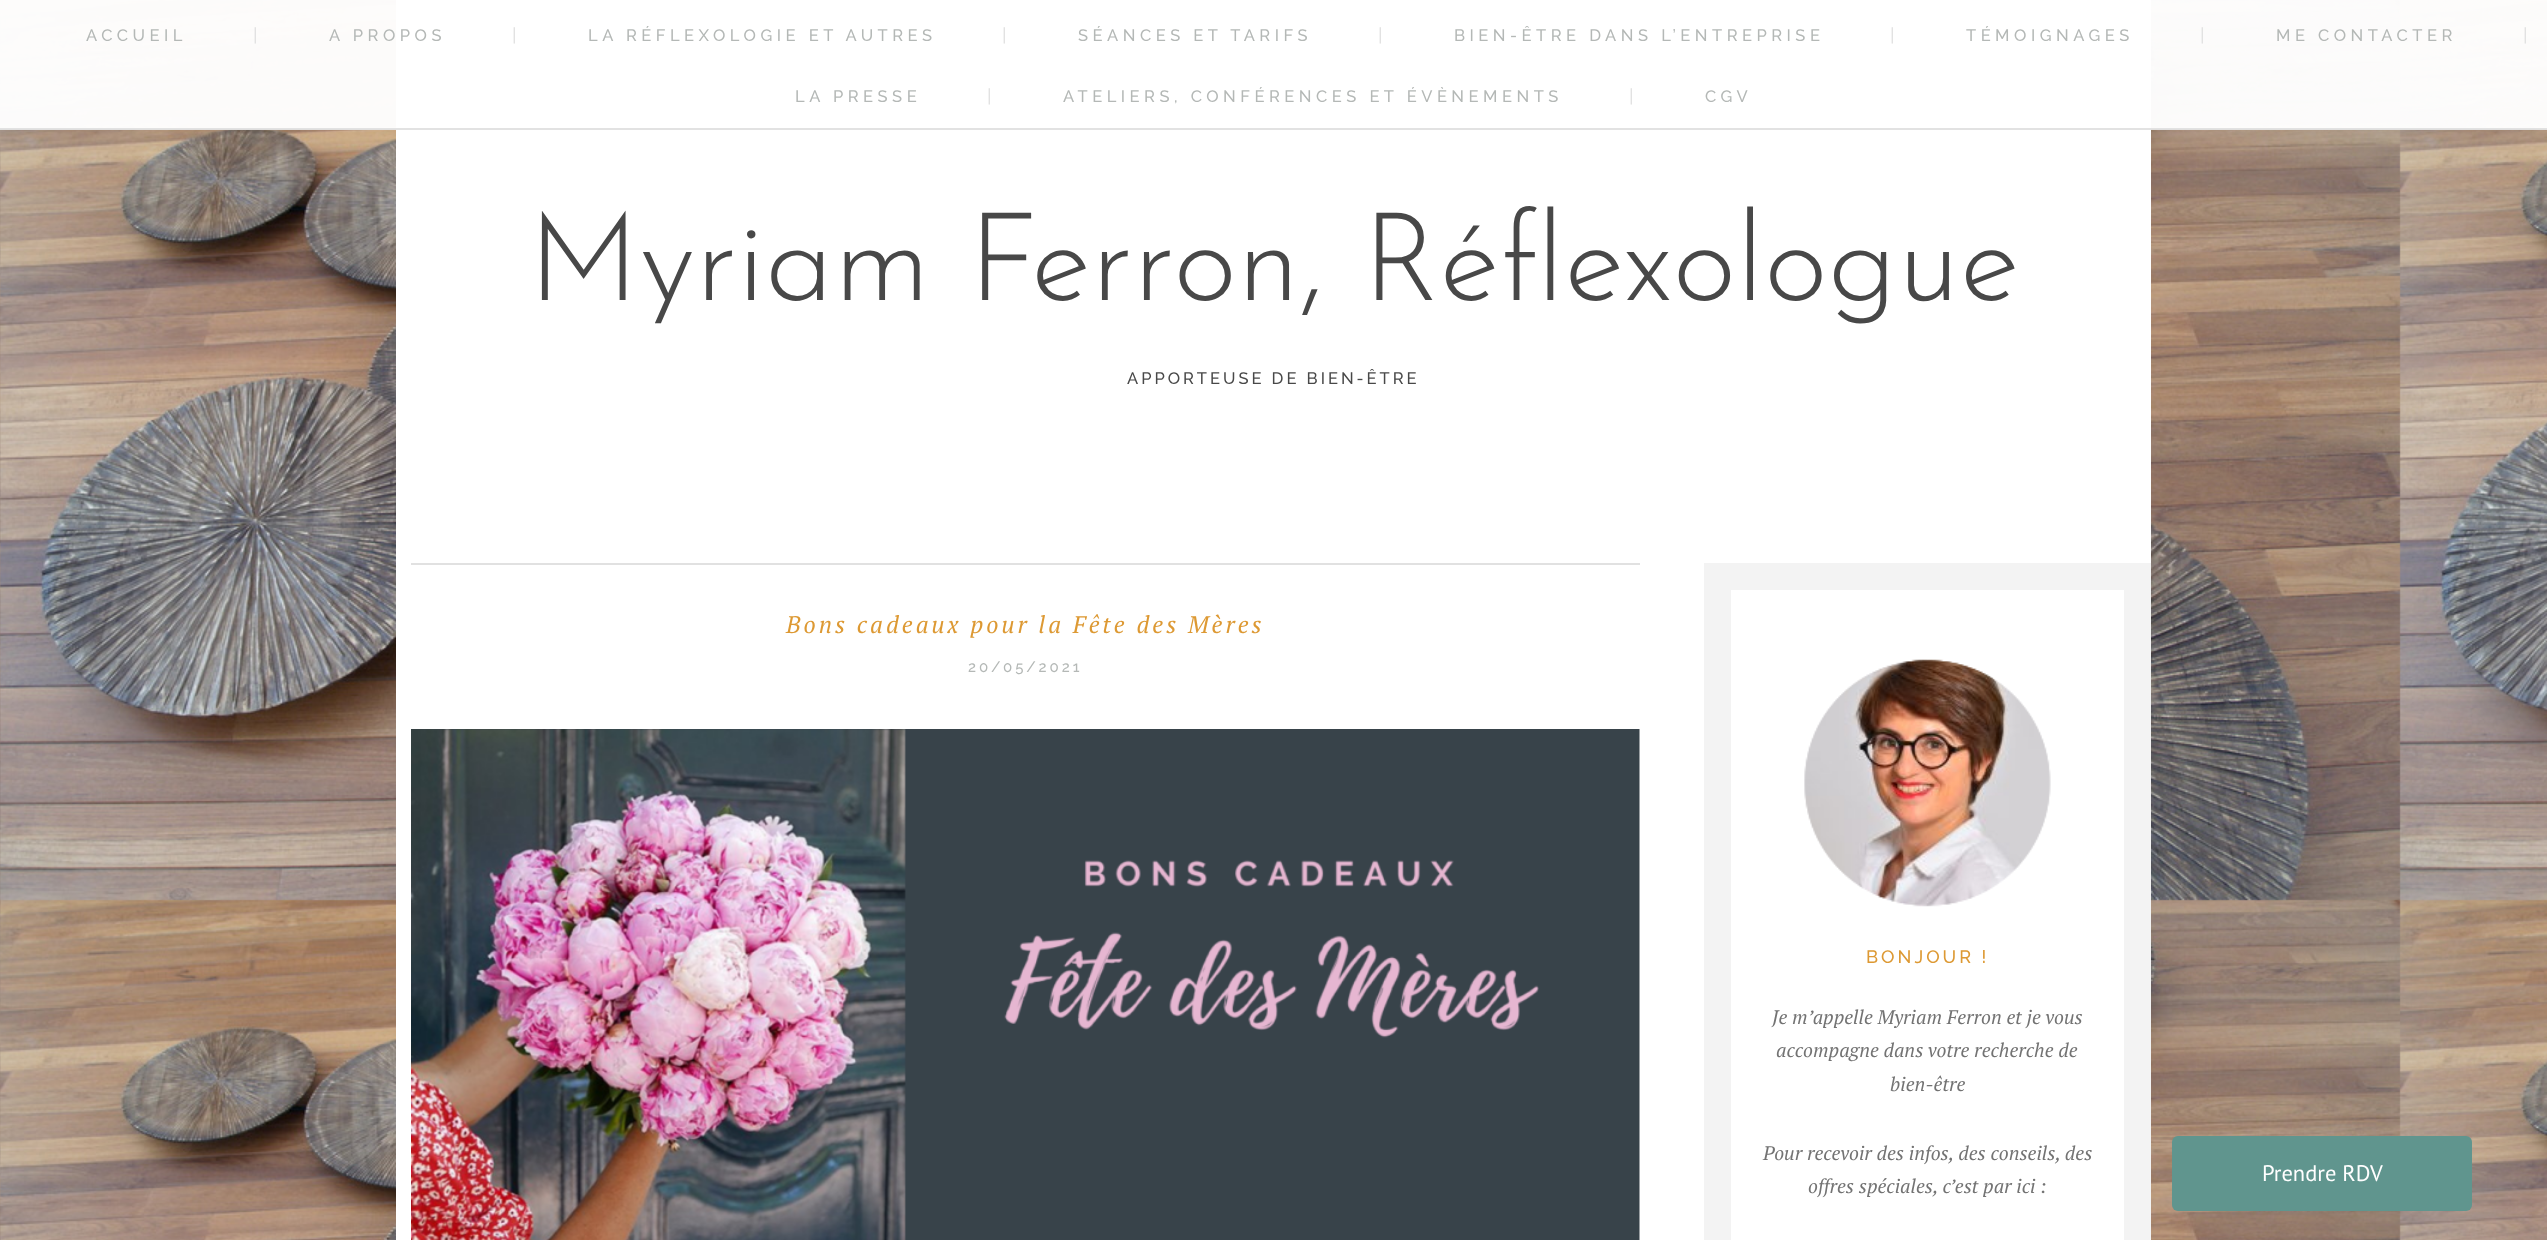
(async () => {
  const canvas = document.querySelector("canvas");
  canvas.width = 2547;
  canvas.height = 1240;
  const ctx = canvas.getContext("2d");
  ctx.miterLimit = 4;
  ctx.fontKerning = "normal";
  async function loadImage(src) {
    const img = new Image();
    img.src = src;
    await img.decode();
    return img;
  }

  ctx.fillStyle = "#ffffff";
  ctx.fillRect(0, 0, 2547, 1240);
  ctx.drawImage(await loadImage("img/1.png"), 0, 0, 2547, 1240);
  for (const [x, y, w, h, color] of [
    [396, 0, 1755, 1240, "#ffffff"],
    [0, 0, 2547, 129, "rgba(255, 255, 255, 0.97)"],
    [0, 128, 2547, 2, "rgba(225, 225, 225, 0.97)"],
    [411, 563, 1229, 2, "#e1e1e1"],
  ]) {
    ctx.fillStyle = color;
    ctx.fillRect(x, y, w, h);
  }
  ctx.drawImage(await loadImage("img/2.png"), 411, 729, 1229, 511);
  ctx.strokeStyle = "#f3f3f3";
  ctx.lineWidth = 27;
  ctx.strokeRect(1717.5, 576.5, 420, 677);
  ctx.drawImage(await loadImage("img/4.png"), 1798, 659, 257, 248);
  ctx.drawImage(await loadImage("img/3.png"), 1798, 655, 257, 257);
  ctx.fillStyle = "#60958e";
  ctx.beginPath();
  ctx.roundRect(2172, 1136, 300, 75, 6);
  ctx.fill();
  ctx.letterSpacing = "4.5px";
  ctx.font = "500 16.5px Raleway";
  ctx.fillStyle = "#b4b8b6";
  ctx.fillText("ACCUEIL", 86, 41);
  ctx.letterSpacing = "0px";
  ctx.font = "19.5px PT Sans";
  ctx.fillStyle = "#e2e2e2";
  ctx.fillText("|", 253, 41);
  ctx.letterSpacing = "4.5px";
  ctx.font = "500 16.5px Raleway";
  ctx.fillStyle = "#b4b8b6";
  ctx.fillText("A PROPOS", 329, 41);
  ctx.letterSpacing = "0px";
  ctx.font = "19.5px PT Sans";
  ctx.fillStyle = "#e2e2e2";
  ctx.fillText("|", 512, 41);
  ctx.letterSpacing = "4.5px";
  ctx.font = "500 16.5px Raleway";
  ctx.fillStyle = "#b4b8b6";
  ctx.fillText("LA RÉFLEXOLOGIE ET AUTRES", 588, 41);
  ctx.letterSpacing = "0px";
  ctx.font = "19.5px PT Sans";
  ctx.fillStyle = "#e2e2e2";
  ctx.fillText("|", 1002, 41);
  ctx.letterSpacing = "4.5px";
  ctx.font = "500 16.5px Raleway";
  ctx.fillStyle = "#b4b8b6";
  ctx.fillText("SÉANCES ET TARIFS", 1078, 41);
  ctx.letterSpacing = "0px";
  ctx.font = "19.5px PT Sans";
  ctx.fillStyle = "#e2e2e2";
  ctx.fillText("|", 1378, 41);
  ctx.letterSpacing = "4.5px";
  ctx.font = "500 16.5px Raleway";
  ctx.fillStyle = "#b4b8b6";
  ctx.fillText("BIEN-ÊTRE DANS L’ENTREPRISE", 1454, 41);
  ctx.letterSpacing = "0px";
  ctx.font = "19.5px PT Sans";
  ctx.fillStyle = "#e2e2e2";
  ctx.fillText("|", 1890, 41);
  ctx.letterSpacing = "4.5px";
  ctx.font = "500 16.5px Raleway";
  ctx.fillStyle = "#b4b8b6";
  ctx.fillText("TÉMOIGNAGES", 1966, 41);
  ctx.letterSpacing = "0px";
  ctx.font = "19.5px PT Sans";
  ctx.fillStyle = "#e2e2e2";
  ctx.fillText("|", 2200, 41);
  ctx.letterSpacing = "4.5px";
  ctx.font = "500 16.5px Raleway";
  ctx.fillStyle = "#b4b8b6";
  ctx.fillText("ME CONTACTER", 2276, 41);
  ctx.letterSpacing = "0px";
  ctx.font = "19.5px PT Sans";
  ctx.fillStyle = "#e2e2e2";
  ctx.fillText("|", 2523, 41);
  ctx.letterSpacing = "4.5px";
  ctx.font = "500 16.5px Raleway";
  ctx.fillStyle = "#b4b8b6";
  ctx.fillText("LA PRESSE", 795, 102);
  ctx.letterSpacing = "0px";
  ctx.font = "19.5px PT Sans";
  ctx.fillStyle = "#e2e2e2";
  ctx.fillText("|", 987, 102);
  ctx.letterSpacing = "4.5px";
  ctx.font = "500 16.5px Raleway";
  ctx.fillStyle = "#b4b8b6";
  ctx.fillText("ATELIERS, CONFÉRENCES ET ÉVÈNEMENTS", 1063, 102);
  ctx.letterSpacing = "0px";
  ctx.font = "19.5px PT Sans";
  ctx.fillStyle = "#e2e2e2";
  ctx.fillText("|", 1629, 102);
  ctx.letterSpacing = "4.5px";
  ctx.font = "500 16.5px Raleway";
  ctx.fillStyle = "#b4b8b6";
  ctx.fillText("CGV", 1705, 102);
  ctx.letterSpacing = "0px";
  ctx.font = "100 123px Josefin Sans";
  ctx.fillStyle = "#484848";
  ctx.fillText("Myriam Ferron, Réflexologue", 528, 300);
  ctx.letterSpacing = "3px";
  ctx.font = "500 16.5px Raleway";
  ctx.fillText("APPORTEUSE DE BIEN-ÊTRE", 1127, 384);
  ctx.font = "italic 24px PT Serif";
  ctx.fillStyle = "#dd9933";
  ctx.fillText("Bons cadeaux pour la Fête des Mères", 786, 633);
  ctx.font = "500 15px Raleway";
  ctx.fillStyle = "#b4b8b6";
  ctx.fillText("20/05/2021", 968, 672);
  ctx.font = "500 18px Raleway";
  ctx.fillStyle = "#dd9933";
  ctx.fillText("BONJOUR !", 1866, 963);
  ctx.letterSpacing = "0px";
  ctx.font = "italic 19.5px PT Serif";
  ctx.fillStyle = "#737373";
  for (const [text, x, y] of [
    ["Je m’appelle Myriam Ferron et je vous", 1772, 1024],
    ["accompagne dans votre recherche de", 1776, 1057],
    ["bien-être", 1890, 1091],
    ["Pour recevoir des infos, des conseils, des", 1763, 1160],
    ["offres spéciales, c’est par ici :", 1808, 1193],
  ]) {
    ctx.fillText(text, x, y);
  }
  ctx.font = "22.5px PT Sans";
  ctx.fillStyle = "#ffffff";
  ctx.fillText("Prendre RDV", 2262, 1181);
})();
